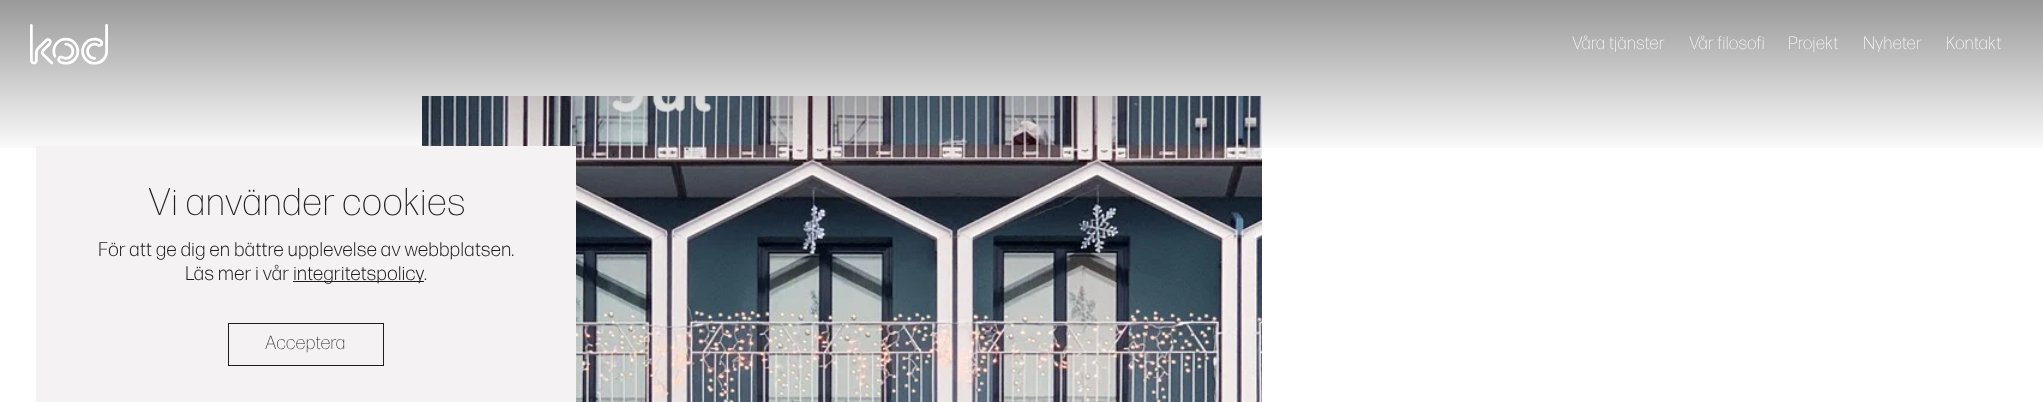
(async () => {
  const canvas = document.querySelector("canvas");
  canvas.width = 2043;
  canvas.height = 402;
  const ctx = canvas.getContext("2d");
  ctx.miterLimit = 4;
  ctx.fontKerning = "normal";
  async function loadImage(src) {
    const img = new Image();
    img.src = src;
    await img.decode();
    return img;
  }
  let gradient;

  ctx.fillStyle = "#ffffff";
  ctx.fillRect(0, 0, 2043, 402);
  ctx.drawImage(await loadImage("img/2.png"), 422, 96, 840, 306);
  gradient = ctx.createLinearGradient(1022, 156, 1022, 0);
  gradient.addColorStop(0, "rgba(0, 0, 0, 0)");
  gradient.addColorStop(1, "rgba(0, 0, 0, 0.4)");
  ctx.fillStyle = gradient;
  ctx.fillRect(0, 0, 2043, 148);
  ctx.drawImage(await loadImage("img/1.png"), 30, 24, 78, 41);
  ctx.fillStyle = "#f4f2f2";
  ctx.fillRect(36, 146, 540, 256);
  ctx.fillStyle = "#1e1e1e";
  ctx.fillRect(293, 281, 131, 1);
  ctx.strokeStyle = "#1e1e1e";
  ctx.strokeRect(228.5, 323.5, 155, 42);
  ctx.font = "200 18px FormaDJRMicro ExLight";
  ctx.fillStyle = "#ffffff";
  for (const [text, x, y] of [
    ["Våra tjänster", 1572, 49],
    ["Vår filosofi", 1689, 49],
    ["Projekt", 1788, 49],
    ["Nyheter", 1863, 49],
    ["Kontakt", 1946, 49],
  ]) {
    ctx.fillText(text, x, y);
  }
  ctx.font = "200 38.5px FormaDJRMicro ExLight";
  ctx.fillStyle = "#1e1e1e";
  ctx.fillText("Vi använder cookies", 148, 215);
  ctx.font = "300 19.8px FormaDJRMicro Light";
  for (const [text, x, y] of [
    ["För att ge dig en bättre upplevelse av webbplatsen.", 98, 256],
    ["Läs mer i vår", 185, 280],
    ["integritetspolicy", 293, 280],
    [".", 424, 280],
  ]) {
    ctx.fillText(text, x, y);
  }
  ctx.font = "200 19px FormaDJRMicro ExLight";
  ctx.fillText("Acceptera", 265, 349);
})();
